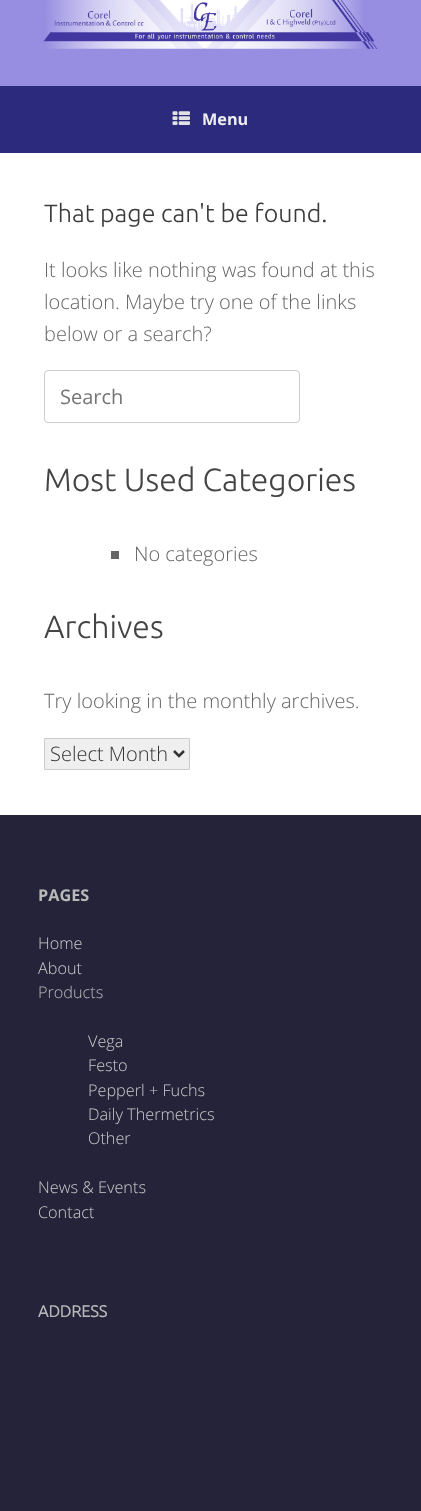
(async () => {
  const canvas = document.querySelector("canvas");
  canvas.width = 421;
  canvas.height = 1511;
  const ctx = canvas.getContext("2d");
  ctx.miterLimit = 4;
  ctx.fontKerning = "normal";
  async function loadImage(src) {
    const img = new Image();
    img.src = src;
    await img.decode();
    return img;
  }
  let path;

  ctx.fillStyle = "#25233a";
  ctx.fillRect(0, 0, 421, 1511);
  ctx.fillStyle = "#978de1";
  ctx.fillRect(0, 0, 421, 86);
  ctx.drawImage(await loadImage("img/1.png"), 43, 0, 335, 49);
  ctx.fillStyle = "#2b2a7c";
  ctx.fillRect(0, 86, 421, 67);
  ctx.drawImage(await loadImage("img/2.png"), 172, 111, 18, 14);
  ctx.fillStyle = "#ffffff";
  ctx.fillRect(0, 153, 421, 662);
  ctx.beginPath();
  ctx.roundRect(44.5, 370.5, 255, 52, 3.5);
  ctx.strokeStyle = "#cccccc";
  ctx.stroke();
  ctx.fillStyle = "#666666";
  ctx.fillRect(111, 551, 8, 8);
  ctx.fillStyle = "#efefef";
  ctx.beginPath();
  ctx.rect(44.5, 738.5, 145, 31);
  ctx.fill();
  ctx.stroke();
  path = new Path2D("M174 751L179 756L184 751");
  ctx.strokeStyle = "#333333";
  ctx.lineWidth = 2.5;
  ctx.stroke(path);
  ctx.font = "bold 16.25px Open Sans";
  ctx.fillStyle = "#ededed";
  ctx.fillText("Menu", 202, 125);
  ctx.font = "300 25px Ubuntu";
  ctx.fillStyle = "#3b3b3b";
  ctx.fillText("That page can't be found.", 44, 222);
  ctx.font = "300 20px Open Sans";
  ctx.fillStyle = "#666666";
  for (const [text, x, y] of [
    ["It looks like nothing was found at this", 44, 277],
    ["location. Maybe try one of the links", 44, 309],
    ["below or a search?", 44, 341],
  ]) {
    ctx.fillText(text, x, y);
  }
  ctx.font = "20px Open Sans";
  ctx.fillStyle = "#757575";
  ctx.fillText("Search", 60, 404);
  ctx.font = "300 32px Ubuntu";
  ctx.fillStyle = "#444444";
  ctx.fillText("Most Used Categories", 44, 491);
  ctx.font = "300 20px Open Sans";
  ctx.fillStyle = "#666666";
  ctx.fillText("No categories", 134, 561);
  ctx.font = "300 32px Ubuntu";
  ctx.fillStyle = "#444444";
  ctx.fillText("Archives", 44, 638);
  ctx.font = "300 20px Open Sans";
  ctx.fillStyle = "#666666";
  ctx.fillText("Try looking in the monthly archives.", 44, 708);
  ctx.fillStyle = "#333333";
  ctx.fillText("Select Month", 50, 761);
  ctx.font = "bold 16.25px Open Sans";
  ctx.fillStyle = "#b9b9b9";
  ctx.fillText("PAGES", 38, 901);
  ctx.font = "300 16.25px Open Sans";
  ctx.fillStyle = "#cccccc";
  ctx.fillText("Home", 38, 949);
  ctx.fillText("About", 38, 974);
  ctx.fillStyle = "#b9b9b9";
  ctx.fillText("Products", 38, 998);
  ctx.fillStyle = "#cccccc";
  for (const [text, x, y] of [
    ["Vega", 88, 1047],
    ["Festo", 88, 1071],
    ["Pepperl + Fuchs", 88, 1096],
    ["Daily Thermetrics", 88, 1120],
    ["Other", 88, 1144],
    ["News & Events", 38, 1193],
    ["Contact", 38, 1218],
  ]) {
    ctx.fillText(text, x, y);
  }
  ctx.font = "bold 16.25px Ubuntu";
  ctx.fillStyle = "#b9b9b9";
  ctx.fillText("ADDRESS", 38, 1317);
})();
